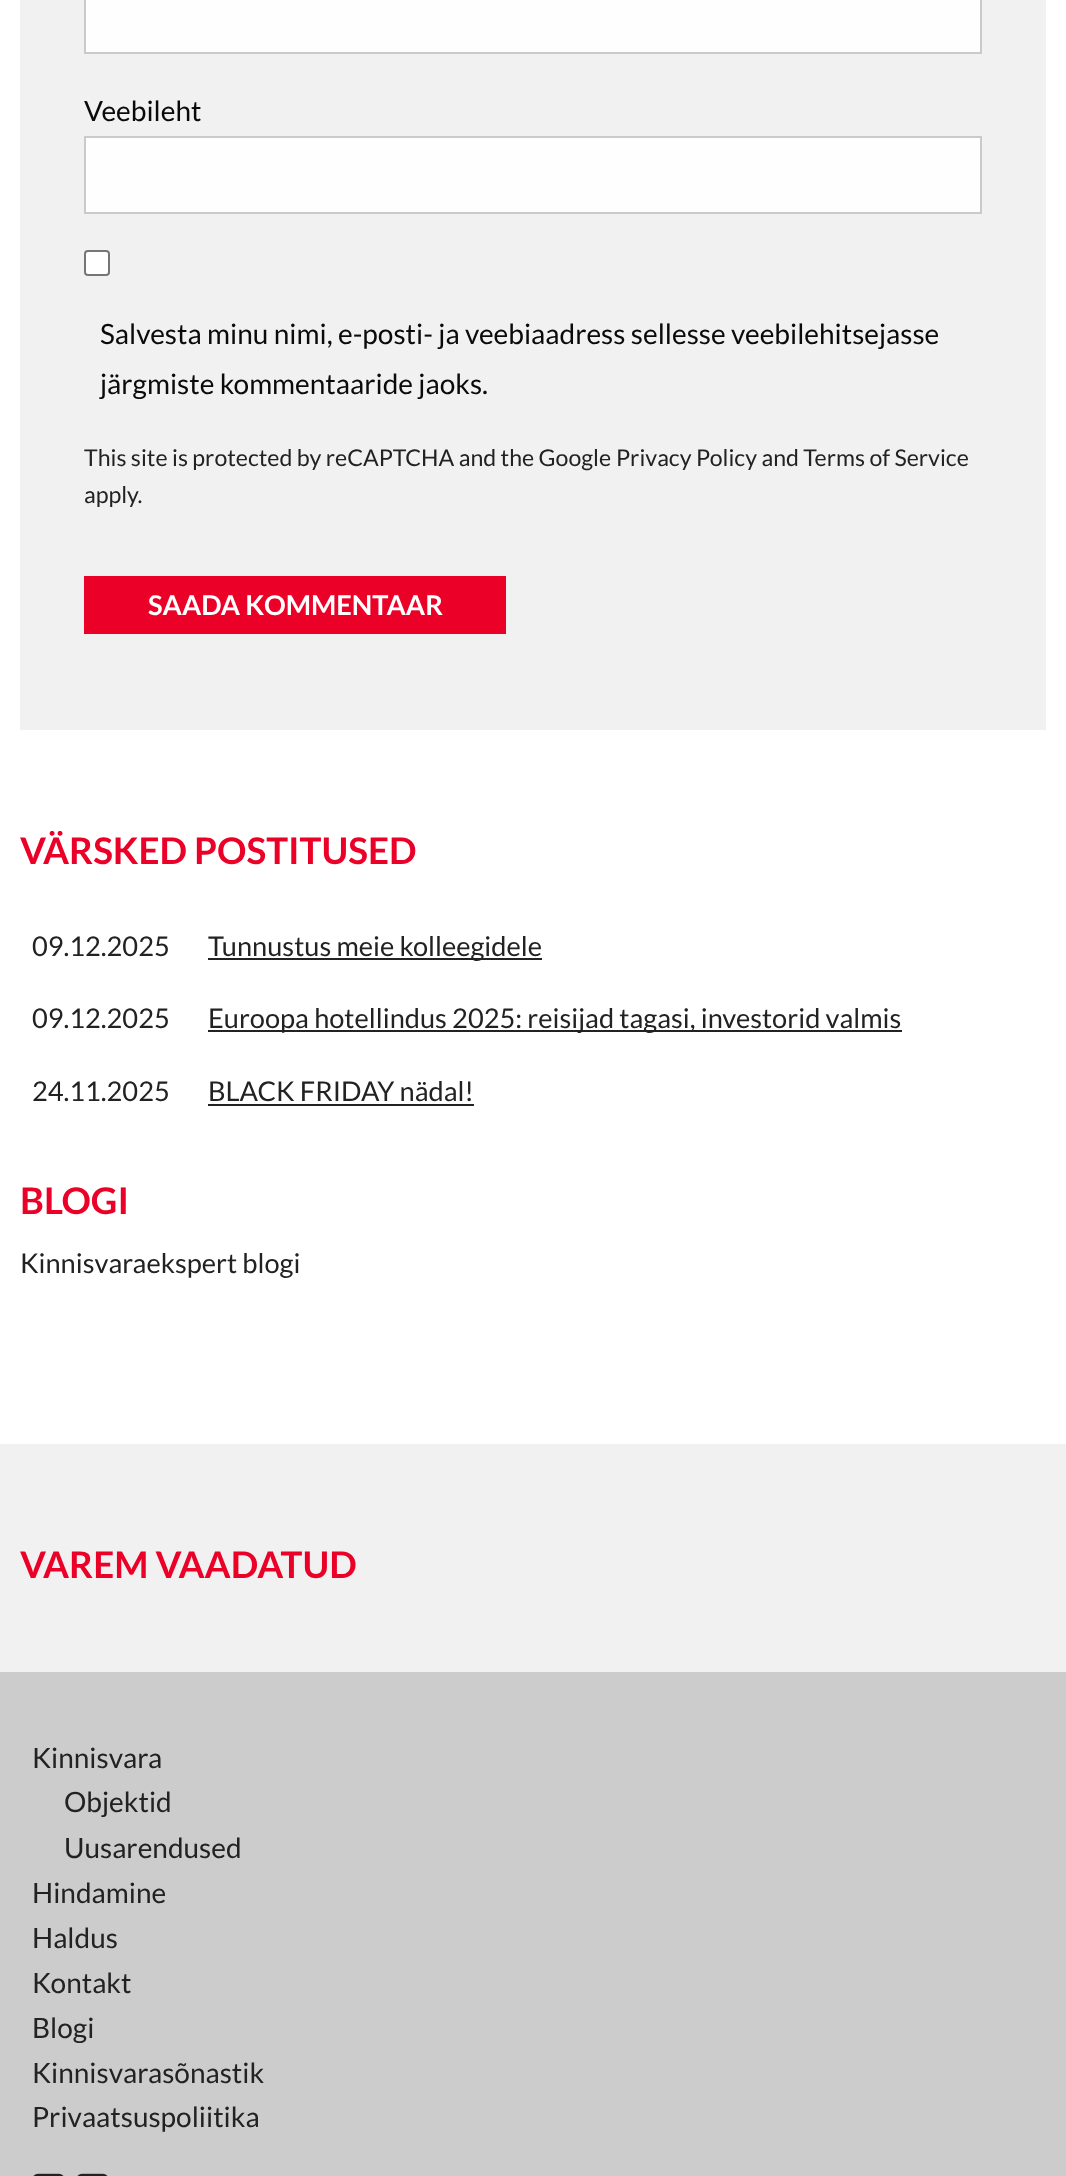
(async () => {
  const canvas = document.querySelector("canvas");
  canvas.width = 1066;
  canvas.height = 2176;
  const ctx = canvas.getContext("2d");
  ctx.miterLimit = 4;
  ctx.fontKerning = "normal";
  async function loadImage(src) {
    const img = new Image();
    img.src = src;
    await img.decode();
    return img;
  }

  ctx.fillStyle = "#ffffff";
  ctx.fillRect(0, 0, 1066, 2176);
  ctx.fillStyle = "#f1f1f1";
  ctx.fillRect(20, 0, 1026, 730);
  ctx.fillStyle = "#fefefe";
  ctx.beginPath();
  ctx.rect(85, -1, 896, 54);
  ctx.fill();
  ctx.strokeStyle = "#cacaca";
  ctx.lineWidth = 2;
  ctx.stroke();
  ctx.beginPath();
  ctx.rect(85, 137, 896, 76);
  ctx.fill();
  ctx.stroke();
  ctx.fillStyle = "#ffffff";
  ctx.beginPath();
  ctx.roundRect(85, 251, 24, 24, 3);
  ctx.fill();
  ctx.strokeStyle = "#767676";
  ctx.stroke();
  for (const [x, y, w, h, color] of [
    [84, 576, 422, 58, "#eb0028"],
    [208, 958, 334, 2, "#222222"],
    [208, 1030, 694, 2, "#222222"],
    [208, 1104, 266, 2, "#222222"],
    [0, 1444, 1066, 228, "#f1f1f1"],
    [0, 1672, 1066, 504, "#cccccc"],
  ]) {
    ctx.fillStyle = color;
    ctx.fillRect(x, y, w, h);
  }
  ctx.drawImage(await loadImage("img/1.png"), 33, 2173, 31, 3);
  ctx.drawImage(await loadImage("img/1.png"), 77, 2173, 31, 3);
  ctx.font = "28px Lato";
  ctx.fillStyle = "#0a0a0a";
  for (const [text, x, y] of [
    ["Veebileht", 84, 121],
    ["Salvesta minu nimi, e-posti- ja veebiaadress sellesse veebilehitsejasse", 100, 344],
    ["järgmiste kommentaaride jaoks.", 100, 394],
  ]) {
    ctx.fillText(text, x, y);
  }
  ctx.font = "23.1px Lato";
  ctx.fillStyle = "#222222";
  for (const [text, x, y] of [
    ["This site is protected by reCAPTCHA and the Google", 84, 466],
    ["Privacy Policy and Terms of Service", 616, 466],
    ["apply.", 84, 503],
  ]) {
    ctx.fillText(text, x, y);
  }
  ctx.font = "bold 27.2px Lato";
  ctx.fillStyle = "#ffffff";
  ctx.fillText("SAADA KOMMENTAAR", 148, 615);
  ctx.font = "bold 36.75px Lato";
  ctx.fillStyle = "#eb0028";
  ctx.fillText("VÄRSKED POSTITUSED", 20, 864);
  ctx.font = "27.2px Lato";
  ctx.fillStyle = "#222222";
  for (const [text, x, y] of [
    ["09.12.2025", 32, 956],
    ["Tunnustus meie kolleegidele", 208, 956],
    ["09.12.2025", 32, 1028],
    ["Euroopa hotellindus 2025: reisijad tagasi, investorid valmis", 208, 1028],
    ["24.11.2025", 32, 1101],
    ["BLACK FRIDAY nädal!", 208, 1101],
  ]) {
    ctx.fillText(text, x, y);
  }
  ctx.font = "bold 36.75px Lato";
  ctx.fillStyle = "#eb0028";
  ctx.fillText("BLOGI", 20, 1214);
  ctx.font = "27.2px Lato";
  ctx.fillStyle = "#222222";
  ctx.fillText("Kinnisvaraekspert blogi", 20, 1273);
  ctx.font = "bold 36.75px Lato";
  ctx.fillStyle = "#eb0028";
  ctx.fillText("VAREM VAADATUD", 20, 1578);
  ctx.font = "28px Lato";
  ctx.fillStyle = "#222222";
  for (const [text, x, y] of [
    ["Kinnisvara", 32, 1768],
    ["Objektid", 64, 1812],
    ["Uusarendused", 64, 1858],
    ["Hindamine", 32, 1903],
    ["Haldus", 32, 1948],
    ["Kontakt", 32, 1993],
    ["Blogi", 32, 2038],
    ["Kinnisvarasõnastik", 32, 2083],
    ["Privaatsuspoliitika", 32, 2127],
  ]) {
    ctx.fillText(text, x, y);
  }
})();
